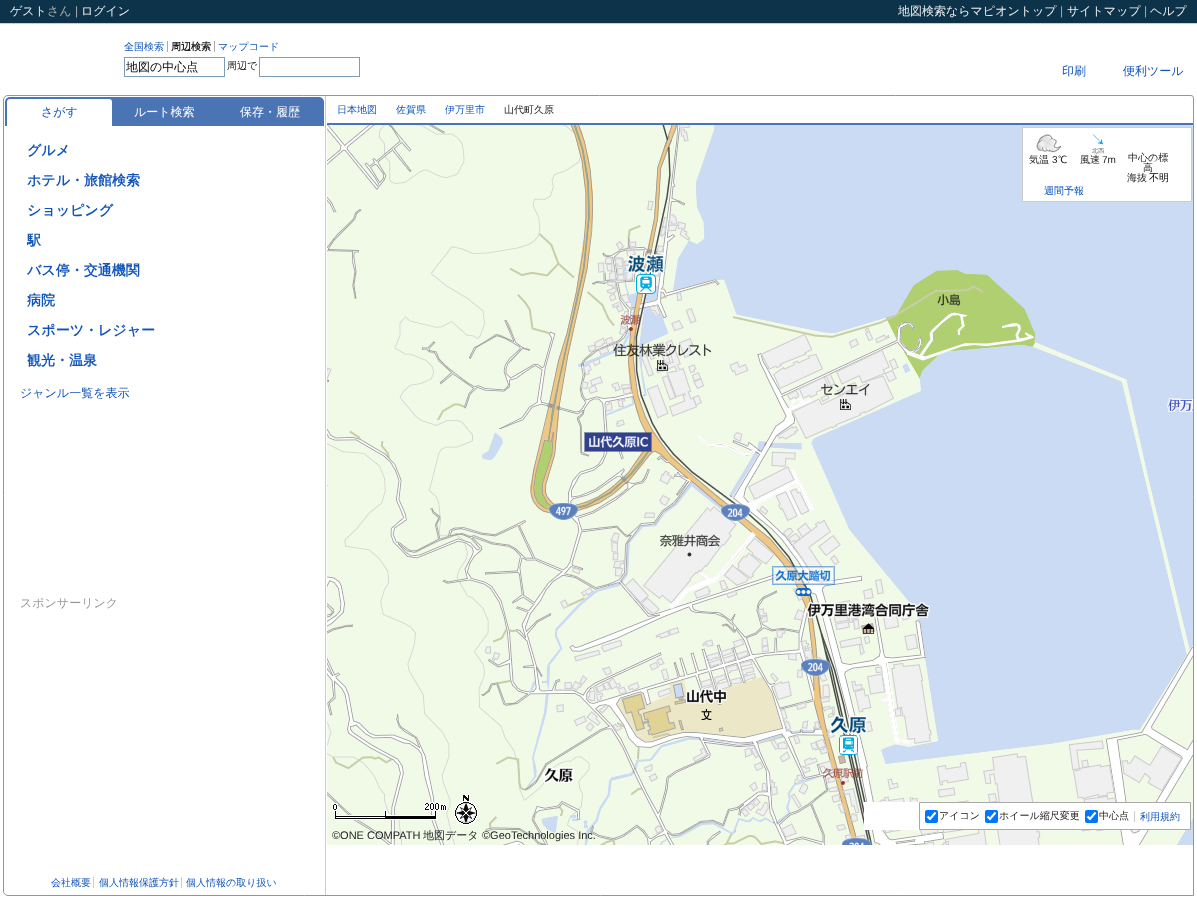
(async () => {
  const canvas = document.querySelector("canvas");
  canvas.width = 1197;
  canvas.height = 901;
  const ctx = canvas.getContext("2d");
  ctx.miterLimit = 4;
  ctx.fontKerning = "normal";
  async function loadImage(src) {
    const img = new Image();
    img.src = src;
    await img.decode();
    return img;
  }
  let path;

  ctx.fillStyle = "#ffffff";
  ctx.fillRect(0, 0, 1197, 901);
  for (const [x, y, w, h, color] of [
    [0, 0, 1197, 23, "#0d334a"],
    [0, 23, 1197, 1, "#cccccc"],
    [167, 41, 1, 11, "#aaaaaa"],
    [214, 41, 1, 11, "#aaaaaa"],
  ]) {
    ctx.fillStyle = color;
    ctx.fillRect(x, y, w, h);
  }
  ctx.strokeStyle = "#7f9db9";
  ctx.strokeRect(124.5, 57.5, 100, 19);
  ctx.strokeRect(259.5, 57.5, 100, 19);
  ctx.beginPath();
  ctx.roundRect(3.5, 95.5, 1190, 800, [4.5, 2.5, 0, 4.5]);
  ctx.strokeStyle = "#959595";
  ctx.stroke();
  ctx.fillStyle = "#cccccc";
  ctx.fillRect(325, 96, 1, 799);
  ctx.fillStyle = "#4a74b4";
  ctx.beginPath();
  ctx.roundRect(5, 97, 319, 29, [5, 5, 0, 0]);
  ctx.fill();
  ctx.fillStyle = "#ffffff";
  ctx.beginPath();
  ctx.roundRect(7, 99, 105, 27, [3, 3, 0, 0]);
  ctx.fill();
  for (const [x, y, w, h, color] of [
    [93, 877, 1, 11, "#cccccc"],
    [181, 877, 1, 11, "#cccccc"],
    [327, 123, 866, 2, "#4a74b4"],
  ]) {
    ctx.fillStyle = color;
    ctx.fillRect(x, y, w, h);
  }
  ctx.drawImage(await loadImage("img/1.png"), 327, 125, 144, 250);
  ctx.drawImage(await loadImage("img/2.png"), 471, 125, 256, 250);
  ctx.drawImage(await loadImage("img/3.png"), 727, 125, 256, 250);
  ctx.drawImage(await loadImage("img/4.png"), 983, 125, 210, 250);
  ctx.drawImage(await loadImage("img/5.png"), 327, 375, 144, 256);
  ctx.drawImage(await loadImage("img/6.png"), 471, 375, 256, 256);
  ctx.drawImage(await loadImage("img/7.png"), 727, 375, 256, 256);
  ctx.drawImage(await loadImage("img/8.png"), 983, 375, 210, 256);
  ctx.drawImage(await loadImage("img/9.png"), 327, 631, 144, 214);
  ctx.drawImage(await loadImage("img/10.png"), 471, 631, 256, 214);
  ctx.drawImage(await loadImage("img/11.png"), 727, 631, 256, 214);
  ctx.drawImage(await loadImage("img/12.png"), 983, 631, 210, 214);
  ctx.fillStyle = "#ffffff";
  ctx.beginPath();
  ctx.rect(1022.5, 127.5, 169, 74);
  ctx.fill();
  ctx.strokeStyle = "#cccccc";
  ctx.stroke();
  ctx.drawImage(await loadImage("img/13.png"), 1036, 134, 25, 19);
  ctx.drawImage(await loadImage("img/14.png"), 1092, 134, 12, 20);
  ctx.drawImage(await loadImage("img/15.png"), 332, 794, 146, 31);
  ctx.fillRect(864, 802, 55, 28);
  ctx.beginPath();
  ctx.rect(919.5, 802.5, 271, 27);
  ctx.fill();
  ctx.strokeStyle = "#aaaaaa";
  ctx.stroke();
  ctx.fillStyle = "#0075ff";
  ctx.beginPath();
  ctx.roundRect(925, 810, 13, 13, 2);
  ctx.fill();
  path = new Path2D("M927.5 816.5L930 819L935.5 812.5");
  ctx.strokeStyle = "#ffffff";
  ctx.lineWidth = 2.1;
  ctx.stroke(path);
  ctx.beginPath();
  ctx.roundRect(985, 810, 13, 13, 2);
  ctx.fill();
  path = new Path2D("M987.5 816.5L990 819L995.5 812.5");
  ctx.stroke(path);
  ctx.beginPath();
  ctx.roundRect(1085, 810, 13, 13, 2);
  ctx.fill();
  path = new Path2D("M1087.5 816.5L1090 819L1095.5 812.5");
  ctx.stroke(path);
  ctx.fillStyle = "#cccccc";
  ctx.fillRect(1134, 811, 1, 11);
  ctx.font = "500 12px WenQuanYi Zen Hei";
  ctx.fillStyle = "#eeeeee";
  ctx.fillText("ゲスト", 10, 15);
  ctx.fillStyle = "#aaaaaa";
  ctx.fillText("さん", 47, 15);
  ctx.font = "12px Liberation Sans";
  ctx.fillText("|", 75, 15);
  ctx.font = "500 12px WenQuanYi Zen Hei";
  ctx.fillStyle = "#eeeeee";
  ctx.fillText("ログイン", 81, 15);
  ctx.fillText("地図検索ならマピオントップ", 898, 15);
  ctx.font = "12px Liberation Sans";
  ctx.fillStyle = "#aaaaaa";
  ctx.fillText("|", 1060, 15);
  ctx.font = "500 12px WenQuanYi Zen Hei";
  ctx.fillStyle = "#eeeeee";
  ctx.fillText("サイトマップ", 1067, 15);
  ctx.font = "12px Liberation Sans";
  ctx.fillStyle = "#aaaaaa";
  ctx.fillText("|", 1144, 15);
  ctx.font = "500 12px WenQuanYi Zen Hei";
  ctx.fillStyle = "#eeeeee";
  ctx.fillText("ヘルプ", 1150, 15);
  ctx.font = "500 10px WenQuanYi Zen Hei";
  ctx.fillStyle = "#1155bb";
  ctx.fillText("全国検索", 124, 50);
  ctx.font = "bold 10px WenQuanYi Zen Hei";
  ctx.fillStyle = "#222222";
  ctx.fillText("周辺検索", 171, 50);
  ctx.font = "500 10px WenQuanYi Zen Hei";
  ctx.fillStyle = "#1155bb";
  ctx.fillText("マップコード", 218, 50);
  ctx.font = "500 12px WenQuanYi Zen Hei";
  ctx.fillStyle = "#000000";
  ctx.fillText("地図の中心点", 126, 71);
  ctx.font = "500 10px WenQuanYi Zen Hei";
  ctx.fillStyle = "#222222";
  ctx.fillText("周辺で", 227, 69);
  ctx.font = "500 12px WenQuanYi Zen Hei";
  ctx.fillStyle = "#1155bb";
  for (const [text, x, y] of [
    ["印刷", 1062, 75],
    ["便利ツール", 1123, 75],
    ["さがす", 41, 116],
  ]) {
    ctx.fillText(text, x, y);
  }
  ctx.fillStyle = "#ffffff";
  ctx.fillText("ルート検索", 134, 116);
  ctx.fillText("保存・履歴", 240, 116);
  ctx.font = "bold 14px WenQuanYi Zen Hei";
  ctx.fillStyle = "#1155bb";
  for (const [text, x, y] of [
    ["グルメ", 27, 155],
    ["ホテル・旅館検索", 27, 185],
    ["ショッピング", 27, 215],
    ["駅", 27, 245],
    ["バス停・交通機関", 27, 275],
    ["病院", 27, 305],
    ["スポーツ・レジャー", 27, 335],
    ["観光・温泉", 27, 365],
  ]) {
    ctx.fillText(text, x, y);
  }
  ctx.font = "500 12px WenQuanYi Zen Hei";
  ctx.fillText("ジャンル一覧を表示", 20, 397);
  ctx.fillStyle = "#999999";
  ctx.fillText("スポンサーリンク", 20, 607);
  ctx.font = "500 10px WenQuanYi Zen Hei";
  ctx.fillStyle = "#1155bb";
  for (const [text, x, y] of [
    ["会社概要", 51, 886],
    ["個人情報保護方針", 99, 886],
    ["個人情報の取り扱い", 186, 886],
    ["日本地図", 337, 113],
    ["佐賀県", 396, 113],
    ["伊万里市", 445, 113],
  ]) {
    ctx.fillText(text, x, y);
  }
  ctx.fillStyle = "#222222";
  ctx.fillText("山代町久原", 504, 113);
  ctx.fillText("気温", 1029, 163);
  ctx.font = "10px Liberation Sans";
  ctx.fillText("3", 1052, 163);
  ctx.font = "500 10px WenQuanYi Zen Hei";
  ctx.fillText("℃", 1058, 163);
  ctx.fillText("風速", 1080, 163);
  ctx.font = "10px Liberation Sans";
  ctx.fillText("7m", 1102, 163);
  ctx.font = "500 10px WenQuanYi Zen Hei";
  for (const [text, x, y] of [
    ["中心の標", 1128, 161],
    ["高", 1143, 171],
    ["海抜", 1127, 181],
  ]) {
    ctx.fillText(text, x, y);
  }
  ctx.fillStyle = "#000000";
  ctx.fillText("不明", 1149, 181);
  ctx.fillStyle = "#1155bb";
  ctx.fillText("週間予報", 1044, 194);
  ctx.fillStyle = "#222222";
  for (const [text, x, y] of [
    ["アイコン", 939, 819],
    ["ホイール縮尺変更", 999, 819],
    ["中心点", 1099, 819],
  ]) {
    ctx.fillText(text, x, y);
  }
  ctx.fillStyle = "#1155bb";
  ctx.fillText("利用規約", 1140, 820);
  ctx.font = "11px Liberation Sans";
  ctx.fillStyle = "#222222";
  ctx.fillText("©ONE COMPATH", 332, 839);
  ctx.font = "500 11px WenQuanYi Zen Hei";
  ctx.fillText("地図データ", 423, 839);
  ctx.font = "11px Liberation Sans";
  ctx.fillText("©GeoTechnologies Inc.", 482, 839);
})();
